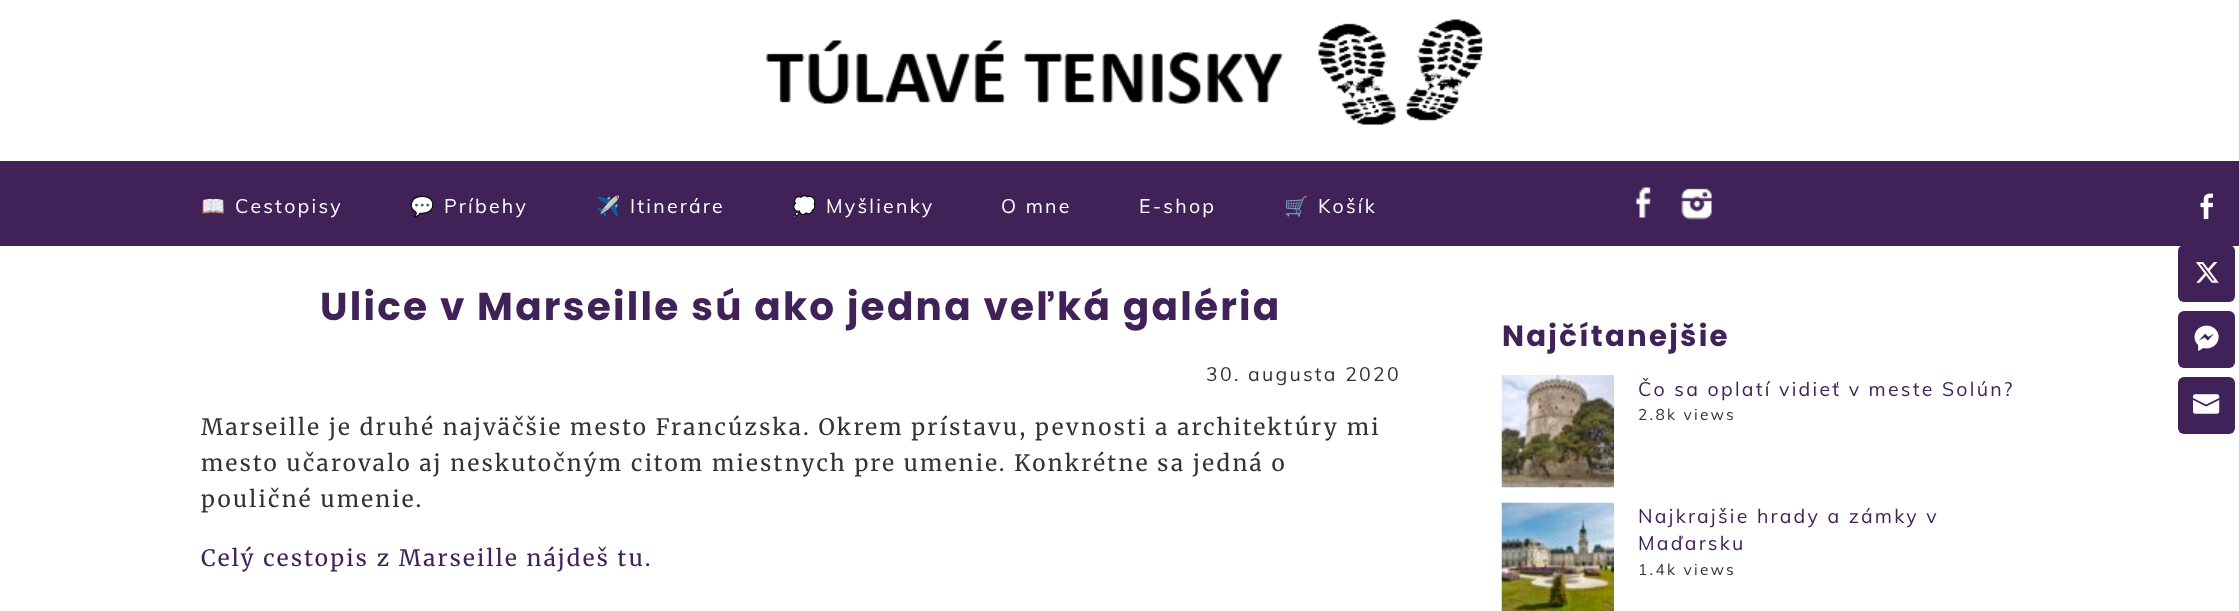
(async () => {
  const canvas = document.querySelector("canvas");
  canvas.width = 2239;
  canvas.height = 611;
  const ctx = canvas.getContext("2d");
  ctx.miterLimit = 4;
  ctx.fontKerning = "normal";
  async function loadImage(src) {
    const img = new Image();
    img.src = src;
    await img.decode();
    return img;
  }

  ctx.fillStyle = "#ffffff";
  ctx.fillRect(0, 0, 2239, 611);
  ctx.drawImage(await loadImage("img/1.png"), 766, 19, 717, 106);
  ctx.fillStyle = "#412258";
  ctx.fillRect(0, 161, 2239, 85);
  ctx.drawImage(await loadImage("img/2.png"), 1635, 187, 16, 31);
  ctx.drawImage(await loadImage("img/3.png"), 1681, 188, 31, 32);
  ctx.drawImage(await loadImage("img/4.png"), 2200, 193, 14, 27);
  ctx.beginPath();
  ctx.roundRect(2178, 245, 57, 57, 6);
  ctx.fill();
  ctx.drawImage(await loadImage("img/5.png"), 2196, 262, 23, 21);
  ctx.beginPath();
  ctx.roundRect(2178, 311, 57, 57, 6);
  ctx.fill();
  ctx.drawImage(await loadImage("img/6.png"), 2194, 325, 25, 26);
  ctx.beginPath();
  ctx.roundRect(2178, 377, 57, 57, 6);
  ctx.fill();
  ctx.drawImage(await loadImage("img/7.png"), 2193, 394, 27, 20);
  ctx.drawImage(await loadImage("img/8.png"), 1501, 375, 113, 113);
  ctx.drawImage(await loadImage("img/9.png"), 1501, 502, 113, 109);
  ctx.letterSpacing = "2.25px";
  ctx.font = "19.5px Noto Color Emoji";
  ctx.fillStyle = "#ffffff";
  ctx.fillText("📖", 201, 213);
  ctx.font = "19.5px Muli";
  ctx.fillText("Cestopisy", 235, 213);
  ctx.font = "19.5px Noto Color Emoji";
  ctx.fillText("💬", 410, 213);
  ctx.font = "19.5px Muli";
  ctx.fillText("Príbehy", 444, 213);
  ctx.font = "19.5px Noto Color Emoji";
  ctx.fillText("✈️", 596, 213);
  ctx.font = "19.5px Muli";
  ctx.fillText("Itineráre", 630, 213);
  ctx.font = "19.5px Noto Color Emoji";
  ctx.fillText("💭", 792, 213);
  ctx.font = "19.5px Muli";
  for (const [text, x, y] of [
    ["Myšlienky", 826, 213],
    ["O mne", 1001, 213],
    ["E-shop", 1139, 213],
  ]) {
    ctx.fillText(text, x, y);
  }
  ctx.font = "19.5px Noto Color Emoji";
  ctx.fillText("🛒", 1284, 213);
  ctx.font = "19.5px Muli";
  ctx.fillText("Košík", 1318, 213);
  ctx.font = "bold 39px Poppins";
  ctx.fillStyle = "#412258";
  ctx.fillText("Ulice v Marseille sú ako jedna veľká galéria", 320, 320);
  ctx.font = "19.5px Muli";
  ctx.fillStyle = "#333333";
  ctx.fillText("30. augusta 2020", 1206, 381);
  ctx.font = "22.5px Merriweather";
  for (const [text, x, y] of [
    ["Marseille je druhé najväčšie mesto Francúzska. Okrem prístavu, pevnosti a architektúry mi", 201, 435],
    ["mesto učarovalo aj neskutočným citom miestnych pre umenie. Konkrétne sa jedná o", 201, 471],
    ["pouličné umenie.", 201, 507],
  ]) {
    ctx.fillText(text, x, y);
  }
  ctx.fillStyle = "#412258";
  ctx.fillText("Celý cestopis z Marseille nájdeš tu.", 201, 566);
  ctx.font = "bold 29.25px Poppins";
  ctx.fillText("Najčítanejšie", 1502, 346);
  ctx.font = "19.5px Muli";
  ctx.fillText("Čo sa oplatí vidieť v meste Solún?", 1638, 396);
  ctx.font = "15.5px Muli";
  ctx.fillStyle = "#333333";
  ctx.fillText("2.8k views", 1638, 420);
  ctx.font = "19.5px Muli";
  ctx.fillStyle = "#412258";
  ctx.fillText("Najkrajšie hrady a zámky v", 1638, 523);
  ctx.fillText("Maďarsku", 1638, 550);
  ctx.font = "15.5px Muli";
  ctx.fillStyle = "#333333";
  ctx.fillText("1.4k views", 1638, 575);
})();
